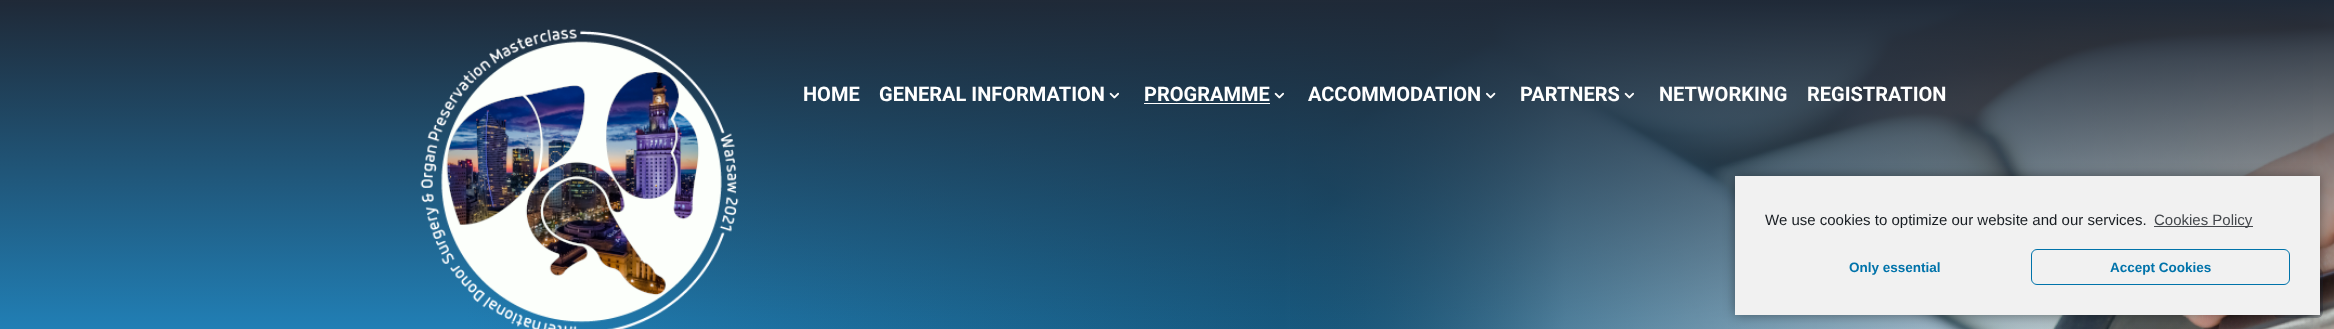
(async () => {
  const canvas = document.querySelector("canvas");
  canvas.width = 2334;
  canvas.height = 329;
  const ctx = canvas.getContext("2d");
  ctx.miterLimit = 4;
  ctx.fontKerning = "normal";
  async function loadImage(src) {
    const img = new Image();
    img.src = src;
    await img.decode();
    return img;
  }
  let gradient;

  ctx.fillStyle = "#ffffff";
  ctx.fillRect(0, 0, 2334, 329);
  ctx.drawImage(await loadImage("img/1.png"), 1290, 2, 1044, 327);
  gradient = ctx.createLinearGradient(-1.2, 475, 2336, 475);
  gradient.addColorStop(0.2, "#2183bb");
  gradient.addColorStop(0.55, "#175b82");
  gradient.addColorStop(1, "rgba(23, 91, 130, 0)");
  ctx.fillStyle = gradient;
  ctx.fillRect(0, 2, 2313, 327);
  ctx.fillStyle = "rgba(31, 41, 55, 0.3)";
  ctx.beginPath();
  ctx.roundRect(2273, 268, 50, 50, 6);
  ctx.fill();
  gradient = ctx.createLinearGradient(1168, 0, 1168, 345);
  gradient.addColorStop(0, "#1f2937");
  gradient.addColorStop(1, "rgba(31, 41, 55, 0)");
  ctx.fillStyle = gradient;
  ctx.fillRect(0, 0, 2334, 329);
  ctx.drawImage(await loadImage("img/2.png"), 420, 28, 319, 301);
  ctx.drawImage(await loadImage("img/3.png"), 1109, 92, 10, 7);
  ctx.fillStyle = "#ffffff";
  ctx.fillRect(1144, 103, 126, 1);
  ctx.drawImage(await loadImage("img/4.png"), 1274, 92, 10, 7);
  ctx.drawImage(await loadImage("img/5.png"), 1486, 92, 10, 7);
  ctx.drawImage(await loadImage("img/6.png"), 1624, 92, 10, 7);
  ctx.fillStyle = "rgba(0, 0, 0, 0.4)";
  ctx.filter = "blur(6px)";
  ctx.beginPath();
  ctx.rect(1735, 176, 585, 139);
  ctx.fill();
  ctx.filter = "none";
  ctx.fillStyle = "#f1f1f1";
  ctx.fillRect(1735, 176, 585, 139);
  ctx.fillStyle = "#44484c";
  ctx.fillRect(2154, 226, 99, 1);
  ctx.beginPath();
  ctx.roundRect(2031.5, 249.5, 258, 35, 5.5);
  ctx.strokeStyle = "#0073aa";
  ctx.stroke();
  ctx.font = "bold 20px Roboto";
  ctx.fillStyle = "#ffffff";
  for (const [text, x, y] of [
    ["HOME", 803, 101],
    ["GENERAL INFORMATION", 879, 101],
    ["PROGRAMME", 1144, 101],
    ["ACCOMMODATION", 1308, 101],
    ["PARTNERS", 1520, 101],
    ["NETWORKING", 1659, 101],
    ["REGISTRATION", 1807, 101],
  ]) {
    ctx.fillText(text, x, y);
  }
  ctx.font = "15px Liberation Sans";
  ctx.fillStyle = "#191e23";
  ctx.fillText("We use cookies to optimize our website and our services.", 1765, 225);
  ctx.fillStyle = "#44484c";
  ctx.fillText("Cookies Policy", 2154, 225);
  ctx.font = "bold 13.5px Liberation Sans";
  ctx.fillStyle = "#0073aa";
  ctx.fillText("Only essential", 1849, 272);
  ctx.fillText("Accept Cookies", 2110, 272);
})();
